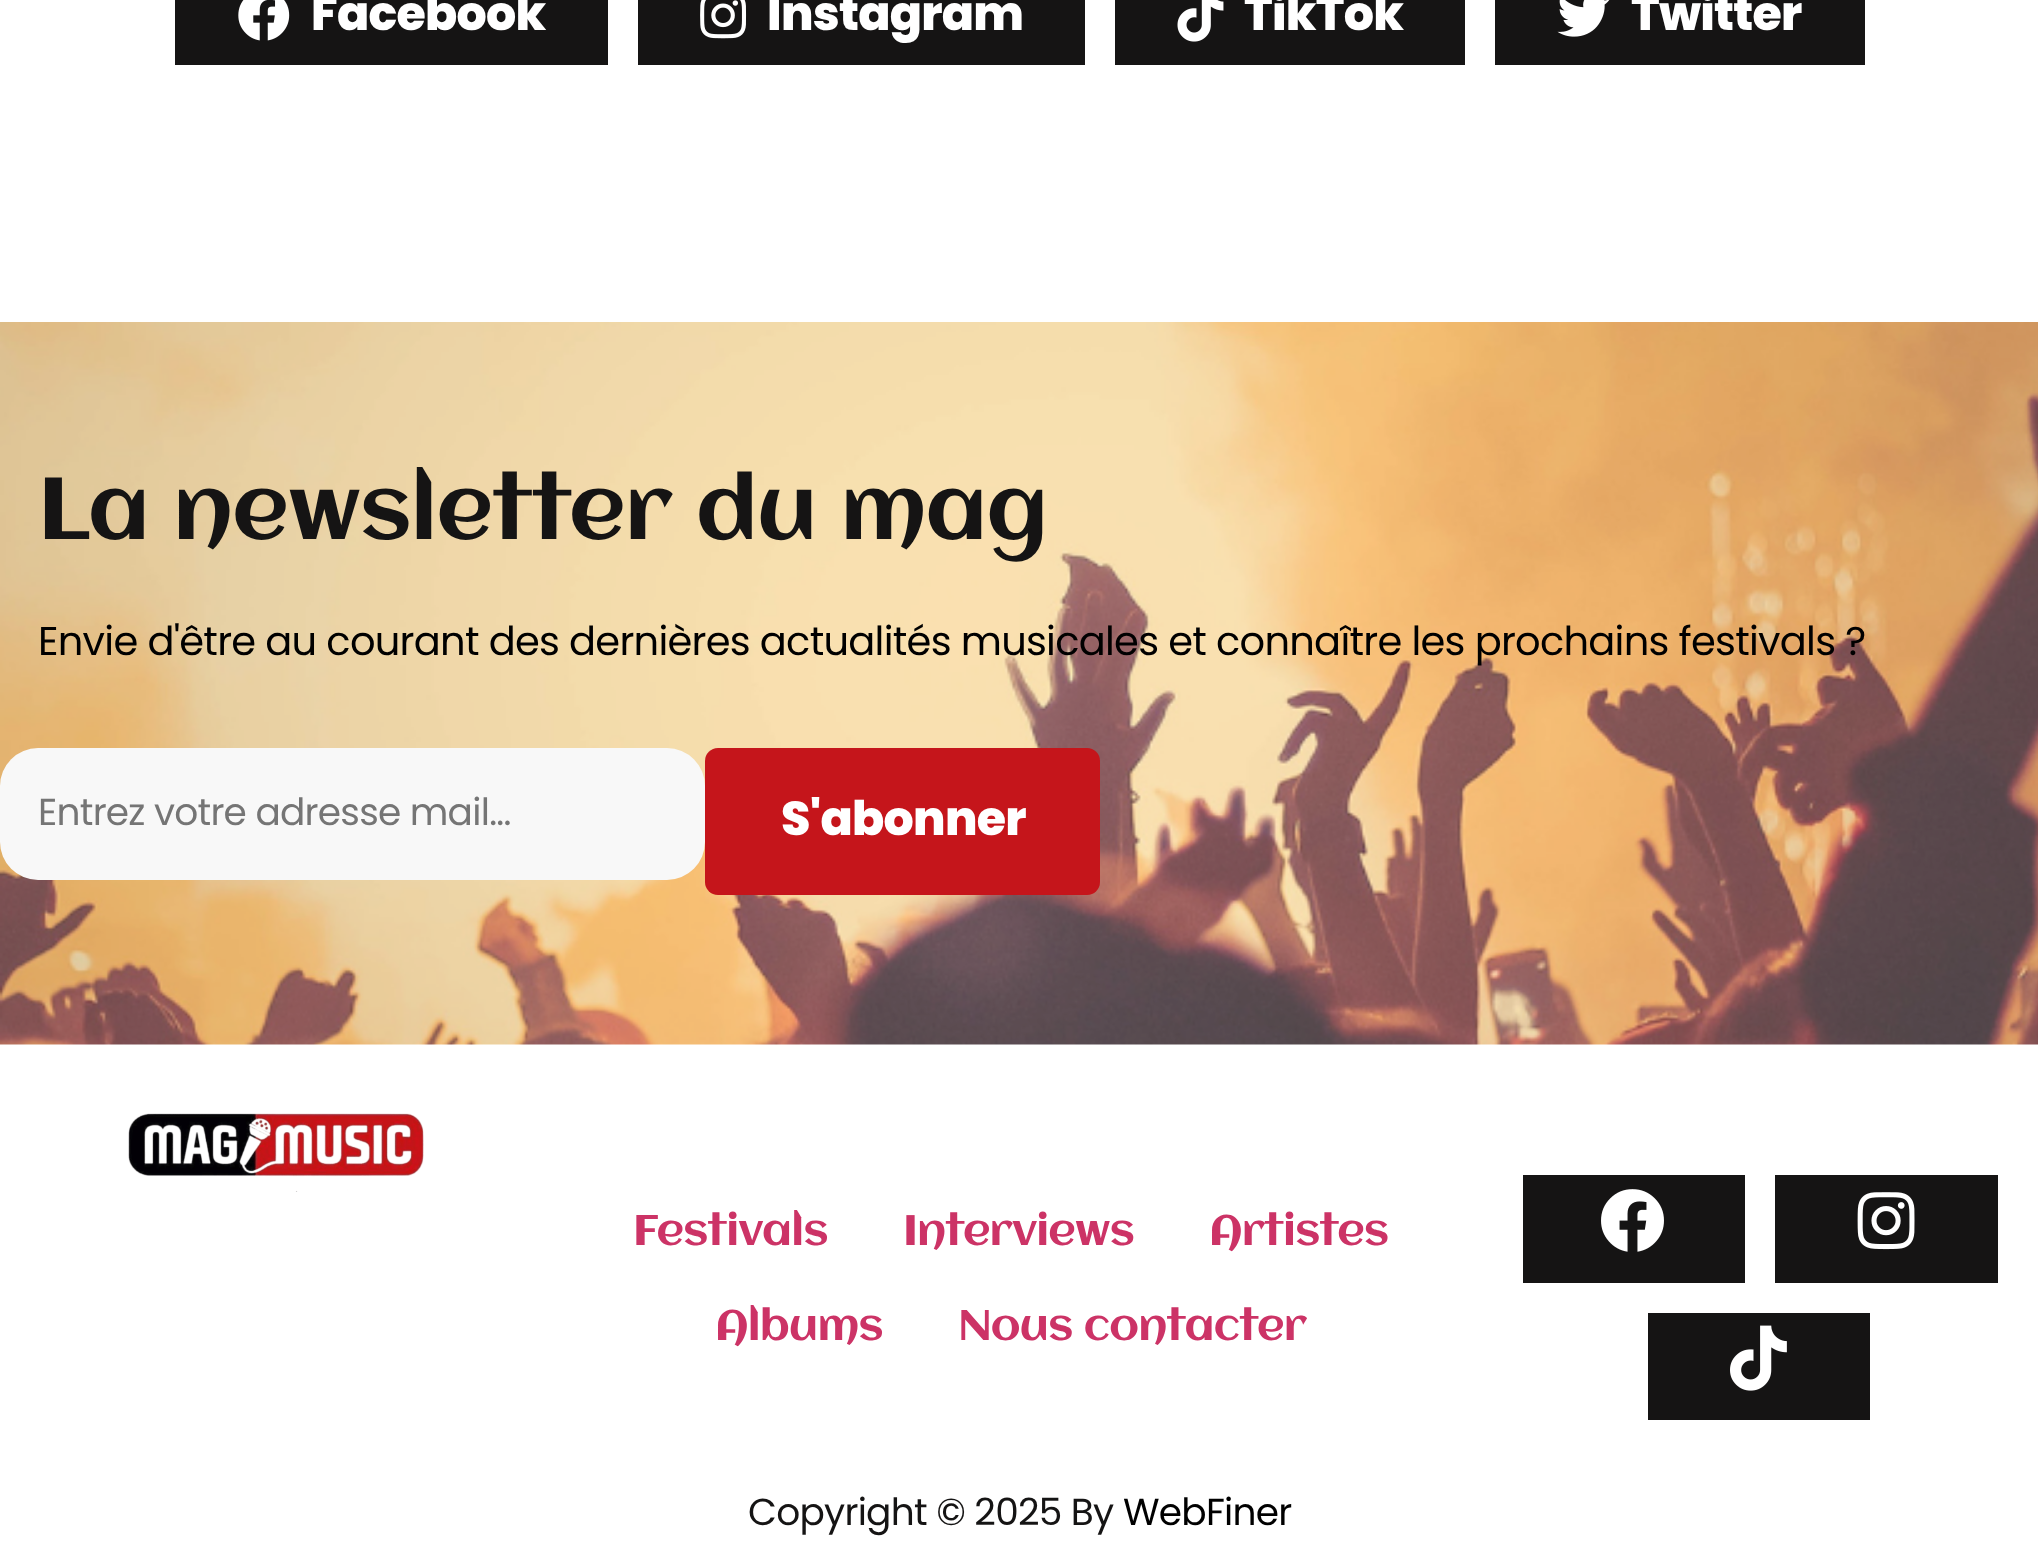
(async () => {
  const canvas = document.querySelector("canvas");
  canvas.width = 2038;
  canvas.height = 1563;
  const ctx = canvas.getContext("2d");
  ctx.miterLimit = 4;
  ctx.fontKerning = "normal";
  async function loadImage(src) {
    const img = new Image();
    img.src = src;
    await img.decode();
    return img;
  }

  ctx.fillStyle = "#ffffff";
  ctx.fillRect(0, 0, 2038, 1563);
  ctx.fillStyle = "#151414";
  ctx.fillRect(175, 0, 433, 65);
  ctx.drawImage(await loadImage("img/1.png"), 238, 0, 52, 41);
  ctx.fillRect(638, 0, 447, 65);
  ctx.drawImage(await loadImage("img/2.png"), 700, 0, 47, 39);
  ctx.fillRect(1115, 0, 350, 65);
  ctx.drawImage(await loadImage("img/3.png"), 1177, 0, 47, 42);
  ctx.fillRect(1495, 0, 370, 65);
  ctx.drawImage(await loadImage("img/4.png"), 1557, 0, 53, 37);
  ctx.drawImage(await loadImage("img/5.png"), 0, 322, 2038, 723);
  ctx.fillStyle = "#f8f8f8";
  ctx.beginPath();
  ctx.roundRect(0, 748, 705, 132, 38);
  ctx.fill();
  ctx.fillStyle = "#c5151b";
  ctx.beginPath();
  ctx.roundRect(705, 748, 395, 147, 13);
  ctx.fill();
  ctx.drawImage(await loadImage("img/6.png"), 128, 1113, 296, 79);
  ctx.fillStyle = "#151414";
  ctx.fillRect(1523, 1175, 222, 108);
  ctx.drawImage(await loadImage("img/7.png"), 1601, 1189, 63, 63);
  ctx.fillRect(1775, 1175, 223, 108);
  ctx.drawImage(await loadImage("img/8.png"), 1857, 1192, 58, 58);
  ctx.fillRect(1648, 1313, 222, 107);
  ctx.drawImage(await loadImage("img/9.png"), 1730, 1325, 57, 66);
  ctx.letterSpacing = "-0.75px";
  ctx.font = "800 47.5px Poppins";
  ctx.fillStyle = "#ffffff";
  for (const [text, x, y] of [
    ["Facebook", 311, 30],
    ["Instagram", 767, 30],
    ["TikTok", 1244, 30],
    ["Twitter", 1631, 30],
  ]) {
    ctx.fillText(text, x, y);
  }
  ctx.font = "87.5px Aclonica";
  ctx.fillStyle = "#151414";
  ctx.fillText("La newsletter du mag", 38, 539);
  ctx.font = "40px Poppins";
  ctx.fillStyle = "#000000";
  ctx.fillText("Envie d'être au courant des dernières actualités musicales et connaître les prochains festivals ?", 38, 655);
  ctx.font = "37.5px Poppins";
  ctx.fillStyle = "#757575";
  ctx.fillText("Entrez votre adresse mail...", 38, 825);
  ctx.font = "800 47.5px Poppins";
  ctx.fillStyle = "#ffffff";
  ctx.fillText("S'abonner", 781, 835);
  ctx.font = "42.5px Aclonica";
  ctx.fillStyle = "#cc3366";
  for (const [text, x, y] of [
    ["Festivals", 633, 1245],
    ["Interviews", 903, 1245],
    ["Artistes", 1209, 1245],
    ["Albums", 715, 1340],
    ["Nous contacter", 958, 1340],
  ]) {
    ctx.fillText(text, x, y);
  }
  ctx.font = "37.5px Poppins";
  ctx.fillStyle = "#151414";
  ctx.fillText("Copyright © 2025 By", 748, 1525);
  ctx.fillStyle = "#000000";
  ctx.fillText("WebFiner", 1123, 1525);
})();
